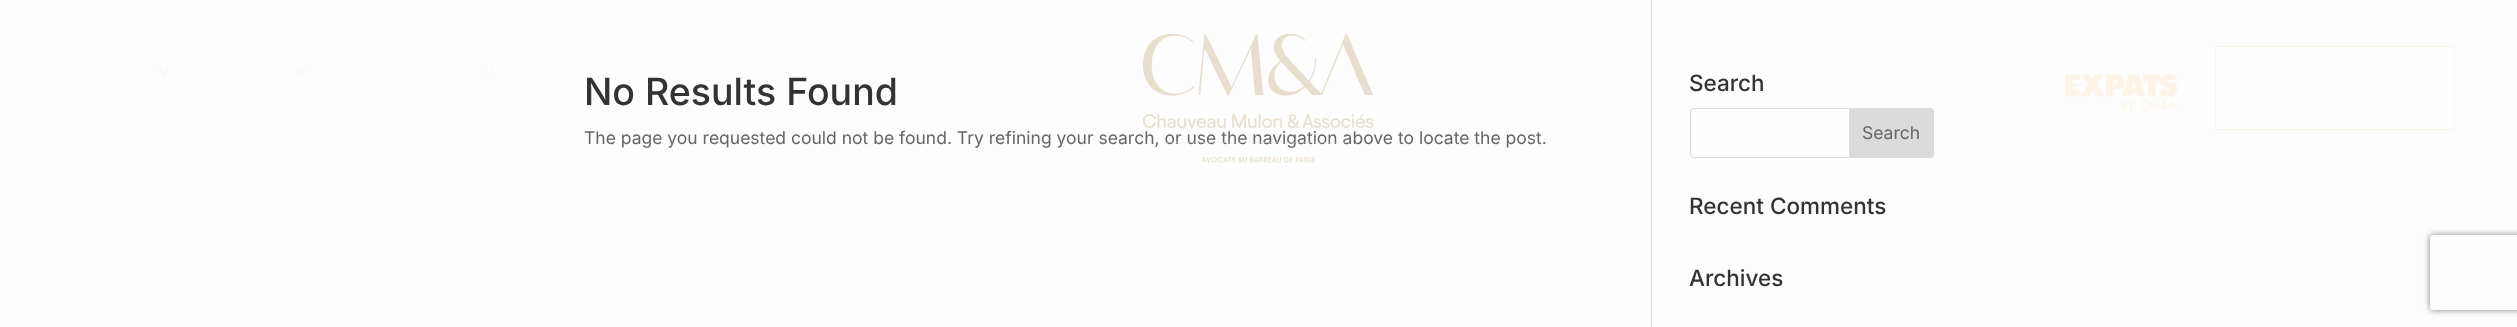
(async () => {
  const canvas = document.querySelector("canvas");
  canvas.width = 2517;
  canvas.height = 327;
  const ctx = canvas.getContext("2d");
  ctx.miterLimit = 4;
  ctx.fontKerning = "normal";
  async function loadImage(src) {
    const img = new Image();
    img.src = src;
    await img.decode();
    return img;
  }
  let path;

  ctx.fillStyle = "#fdfdfd";
  ctx.fillRect(0, 0, 2517, 327);
  ctx.drawImage(await loadImage("img/1.png"), 159, 69, 9, 5);
  ctx.drawImage(await loadImage("img/2.png"), 297, 69, 9, 5);
  ctx.drawImage(await loadImage("img/1.png"), 484, 69, 9, 5);
  ctx.drawImage(await loadImage("img/4.png"), 2065, 73, 113, 37);
  ctx.strokeStyle = "#fcf5e7";
  ctx.strokeRect(2215.5, 46.5, 239, 83);
  ctx.fillStyle = "#e0e0e0";
  ctx.fillRect(1651, 0, 1, 327);
  ctx.beginPath();
  ctx.roundRect(1690.5, 108.5, 243, 49, 3.5);
  ctx.strokeStyle = "#dbdbdb";
  ctx.stroke();
  ctx.fillStyle = "#dbdbdb";
  ctx.beginPath();
  ctx.roundRect(1849.5, 108.5, 84, 49, [0, 3.5, 3.5, 0]);
  ctx.fill();
  ctx.stroke();
  ctx.save();
  path = new Path2D("M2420 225H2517V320H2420ZM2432.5 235H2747.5C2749 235 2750 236 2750 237.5V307.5C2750 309 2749 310 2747.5 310H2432.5C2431 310 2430 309 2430 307.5V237.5C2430 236 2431 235 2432.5 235Z");
  ctx.clip(path, "evenodd");
  ctx.fillStyle = "#7f7f7f";
  ctx.filter = "blur(3px)";
  ctx.beginPath();
  ctx.roundRect(2430, 235, 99, 75, 2.5);
  ctx.fill();
  ctx.filter = "none";
  ctx.restore();
  ctx.font = "500 37.5px Inter";
  ctx.fillStyle = "#333333";
  ctx.fillText("No Results Found", 584, 105);
  ctx.font = "17.5px Inter";
  ctx.fillStyle = "#656566";
  ctx.fillText("The page you requested could not be found. Try refining your search, or use the navigation above to locate the post.", 584, 144);
  ctx.drawImage(await loadImage("img/3.png"), 1143, 34, 231, 129);
  ctx.font = "500 22.5px Inter";
  ctx.fillStyle = "#333333";
  ctx.fillText("Search", 1689, 91);
  ctx.font = "17.5px Inter";
  ctx.fillStyle = "#656566";
  ctx.fillText("Search", 1862, 139);
  ctx.font = "500 22.5px Inter";
  ctx.fillStyle = "#333333";
  ctx.fillText("Recent Comments", 1689, 214);
  ctx.fillText("Archives", 1689, 286);
})();
